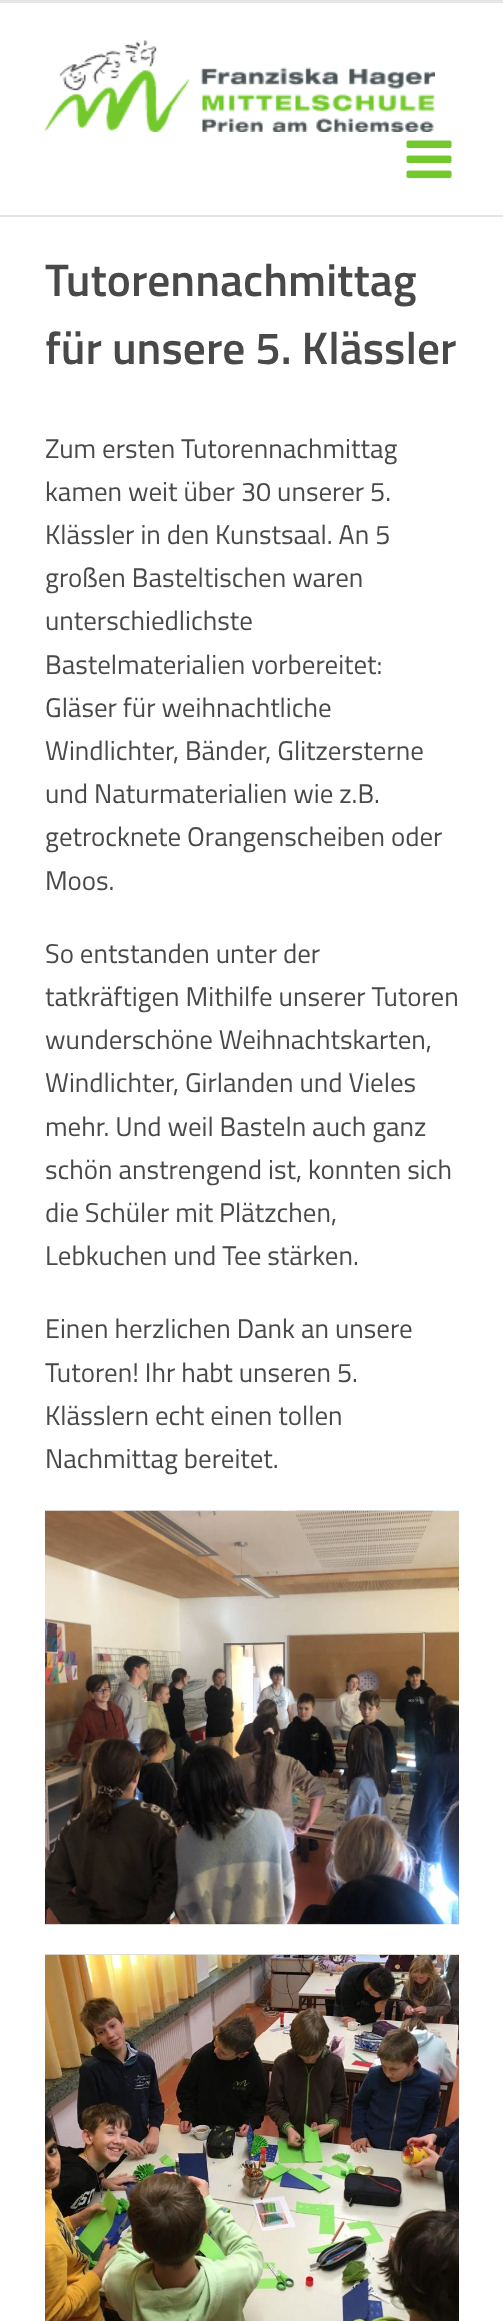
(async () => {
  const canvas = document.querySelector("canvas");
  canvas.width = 503;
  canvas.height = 2321;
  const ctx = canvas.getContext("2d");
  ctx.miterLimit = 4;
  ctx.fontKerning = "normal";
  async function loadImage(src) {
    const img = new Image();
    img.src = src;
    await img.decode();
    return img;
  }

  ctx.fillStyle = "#ffffff";
  ctx.fillRect(0, 0, 503, 2321);
  ctx.fillStyle = "#e5e5e5";
  ctx.fillRect(0, 0, 503, 3);
  ctx.fillRect(0, 215, 503, 2);
  ctx.drawImage(await loadImage("img/1.png"), 45, 40, 390, 92);
  ctx.drawImage(await loadImage("img/2.png"), 406, 140, 46, 39);
  ctx.drawImage(await loadImage("img/3.png"), 45, 1510, 414, 415);
  ctx.drawImage(await loadImage("img/4.png"), 45, 1954, 414, 367);
  ctx.font = "600 45.5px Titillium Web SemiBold";
  ctx.fillStyle = "#494949";
  ctx.fillText("Tutorennachmittag", 45, 296);
  ctx.fillText("für unsere 5. Klässler", 45, 364);
  ctx.font = "27px Titillium Web";
  for (const [text, x, y] of [
    ["Zum ersten Tutorennachmittag", 45, 458],
    ["kamen weit über 30 unserer 5.", 45, 501],
    ["Klässler in den Kunstsaal. An 5", 45, 544],
    ["großen Basteltischen waren", 45, 587],
    ["unterschiedlichste", 45, 630],
    ["Bastelmaterialien vorbereitet:", 45, 674],
    ["Gläser für weihnachtliche", 45, 717],
    ["Windlichter, Bänder, Glitzersterne", 45, 760],
    ["und Naturmaterialien wie z.B.", 45, 803],
    ["getrocknete Orangenscheiben oder", 45, 846],
    ["Moos.", 45, 890],
    ["So entstanden unter der", 45, 963],
    ["tatkräftigen Mithilfe unserer Tutoren", 45, 1006],
    ["wunderschöne Weihnachtskarten,", 45, 1049],
    ["Windlichter, Girlanden und Vieles", 45, 1092],
    ["mehr. Und weil Basteln auch ganz", 45, 1136],
    ["schön anstrengend ist, konnten sich", 45, 1179],
    ["die Schüler mit Plätzchen,", 45, 1222],
    ["Lebkuchen und Tee stärken.", 45, 1265],
    ["Einen herzlichen Dank an unsere", 45, 1338],
    ["Tutoren! Ihr habt unseren 5.", 45, 1382],
    ["Klässlern echt einen tollen", 45, 1425],
    ["Nachmittag bereitet.", 45, 1468],
  ]) {
    ctx.fillText(text, x, y);
  }
})();
